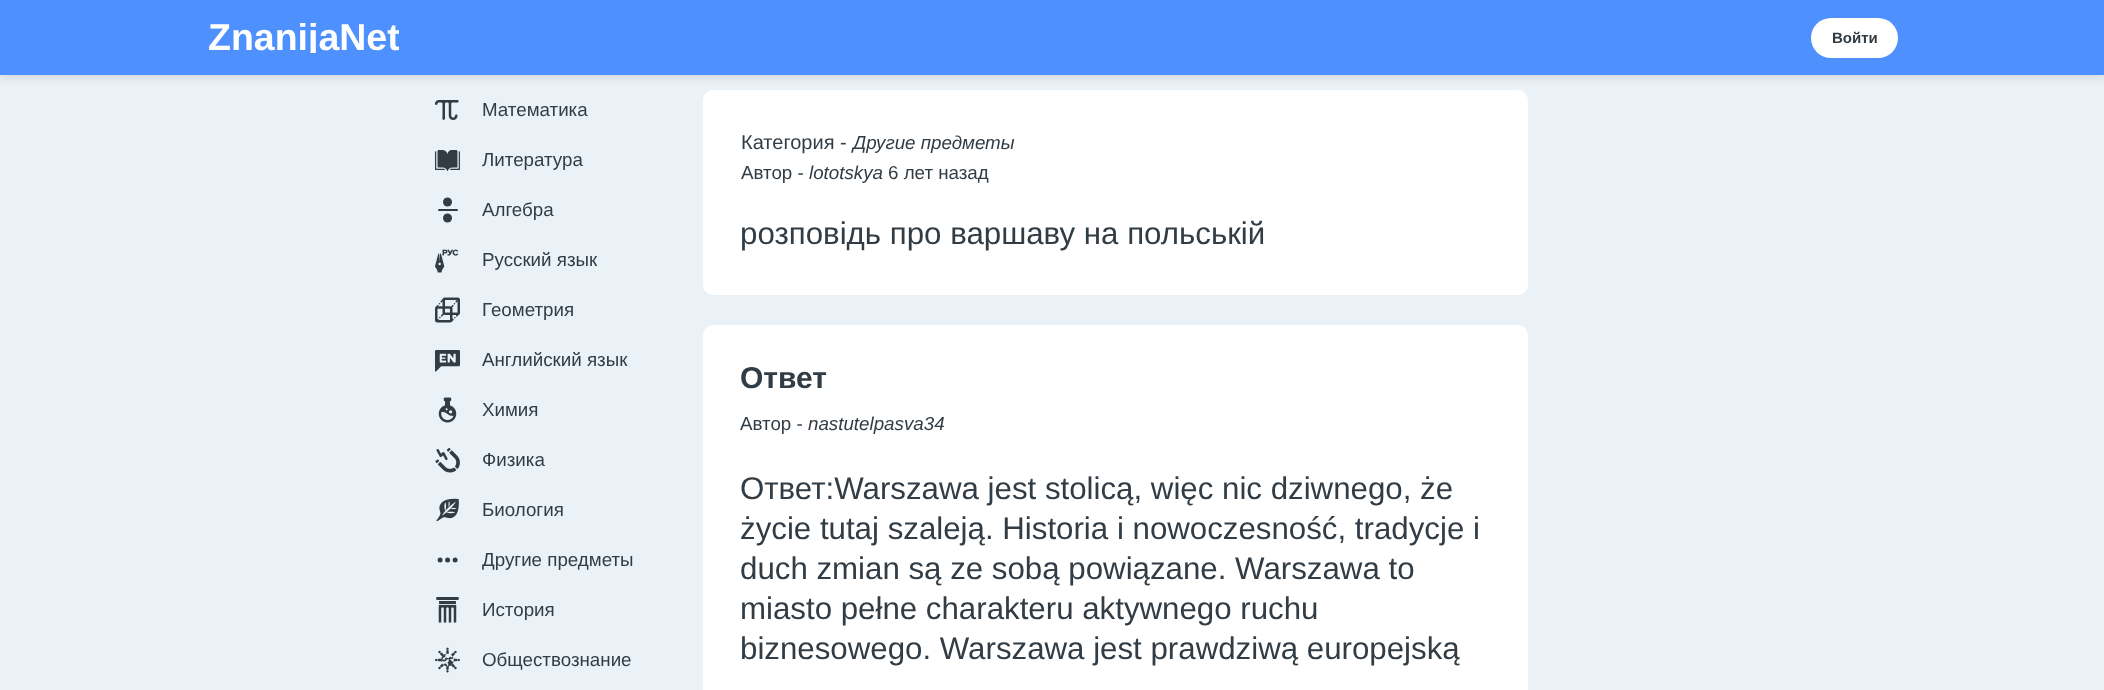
(async () => {
  const canvas = document.querySelector("canvas");
  canvas.width = 2104;
  canvas.height = 690;
  const ctx = canvas.getContext("2d");
  ctx.miterLimit = 4;
  ctx.fontKerning = "normal";
  async function loadImage(src) {
    const img = new Image();
    img.src = src;
    await img.decode();
    return img;
  }

  ctx.fillStyle = "#ebf2f7";
  ctx.fillRect(0, 0, 2104, 690);
  ctx.fillStyle = "rgba(0, 0, 0, 0.1)";
  ctx.filter = "blur(4px)";
  ctx.beginPath();
  ctx.rect(0, 3, 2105, 75);
  ctx.fill();
  ctx.filter = "none";
  ctx.fillStyle = "#4d90fe";
  ctx.fillRect(0, 0, 2104, 75);
  ctx.fillStyle = "#ffffff";
  ctx.beginPath();
  ctx.roundRect(1811, 18, 87, 40, 20);
  ctx.fill();
  ctx.drawImage(await loadImage("img/1.png"), 435, 100, 24, 20);
  ctx.drawImage(await loadImage("img/2.png"), 434, 150, 26, 22);
  ctx.fillStyle = "#323c45";
  ctx.beginPath();
  ctx.roundRect(438, 209, 20, 2, 1);
  ctx.fill();
  ctx.beginPath();
  ctx.arc(447.5, 218, 4.5, 0, Math.PI * 2);
  ctx.fill();
  ctx.beginPath();
  ctx.arc(447.5, 202, 4.5, 0, Math.PI * 2);
  ctx.fill();
  ctx.drawImage(await loadImage("img/3.png"), 435, 249, 24, 24);
  ctx.drawImage(await loadImage("img/4.png"), 435, 297, 25, 26);
  ctx.drawImage(await loadImage("img/5.png"), 435, 350, 25, 22);
  ctx.drawImage(await loadImage("img/6.png"), 438, 397, 19, 26);
  ctx.drawImage(await loadImage("img/7.png"), 435, 448, 25, 25);
  ctx.drawImage(await loadImage("img/8.png"), 436, 498, 23, 24);
  ctx.beginPath();
  ctx.arc(440.1, 559.9, 2.5, 0, Math.PI * 2);
  ctx.fill();
  ctx.beginPath();
  ctx.arc(447.6, 559.9, 2.5, 0, Math.PI * 2);
  ctx.fill();
  ctx.beginPath();
  ctx.arc(455.1, 559.9, 2.5, 0, Math.PI * 2);
  ctx.fill();
  ctx.drawImage(await loadImage("img/9.png"), 436, 597, 23, 26);
  ctx.drawImage(await loadImage("img/10.png"), 435, 647, 25, 26);
  ctx.fillStyle = "#ffffff";
  ctx.beginPath();
  ctx.roundRect(703, 90, 825, 205, 10);
  ctx.fill();
  ctx.beginPath();
  ctx.roundRect(703, 325, 825, 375, 10);
  ctx.fill();
  ctx.save();
  ctx.beginPath();
  ctx.rect(208, 23, 191, 30);
  ctx.clip();
  ctx.font = "bold 37.5px Liberation Sans";
  ctx.fillText("ZnanijaNet", 208, 50);
  ctx.restore();
  ctx.font = "bold 15px Liberation Sans";
  ctx.fillStyle = "#323c45";
  ctx.fillText("Войти", 1832, 43);
  ctx.font = "18.75px Liberation Sans";
  for (const [text, x, y] of [
    ["Математика", 482, 116],
    ["Литература", 482, 166],
    ["Алгебра", 482, 216],
    ["Русский язык", 482, 266],
    ["Геометрия", 482, 316],
    ["Английский язык", 482, 366],
    ["Химия", 482, 416],
    ["Физика", 482, 466],
    ["Биология", 482, 516],
    ["Другие предметы", 482, 566],
    ["История", 482, 616],
    ["Обществознание", 482, 666],
  ]) {
    ctx.fillText(text, x, y);
  }
  ctx.font = "20px Liberation Sans";
  ctx.fillText("Категория -", 741, 149);
  ctx.font = "italic 18.75px Liberation Sans";
  ctx.fillText("Другие предметы", 853, 149);
  ctx.font = "18.75px Liberation Sans";
  ctx.fillText("Автор -", 741, 179);
  ctx.font = "italic 18.75px Liberation Sans";
  ctx.fillText("lototskya", 809, 179);
  ctx.font = "18.75px Liberation Sans";
  ctx.fillText("6 лет назад", 888, 179);
  ctx.font = "31.25px Liberation Sans";
  ctx.fillText("розповідь про варшаву на польській", 740, 244);
  ctx.font = "bold 30px Liberation Sans";
  ctx.fillText("Ответ", 740, 388);
  ctx.font = "18.75px Liberation Sans";
  ctx.fillText("Автор -", 740, 430);
  ctx.font = "italic 18.75px Liberation Sans";
  ctx.fillText("nastutelpasva34", 808, 430);
  ctx.font = "31.25px Liberation Sans";
  for (const [text, x, y] of [
    ["Ответ:Warszawa jest stolicą, więc nic dziwnego, że", 740, 499],
    ["życie tutaj szaleją. Historia i nowoczesność, tradycje i", 740, 539],
    ["duch zmian są ze sobą powiązane. Warszawa to", 740, 579],
    ["miasto pełne charakteru aktywnego ruchu", 740, 619],
    ["biznesowego. Warszawa jest prawdziwą europejską", 740, 659],
  ]) {
    ctx.fillText(text, x, y);
  }
})();
